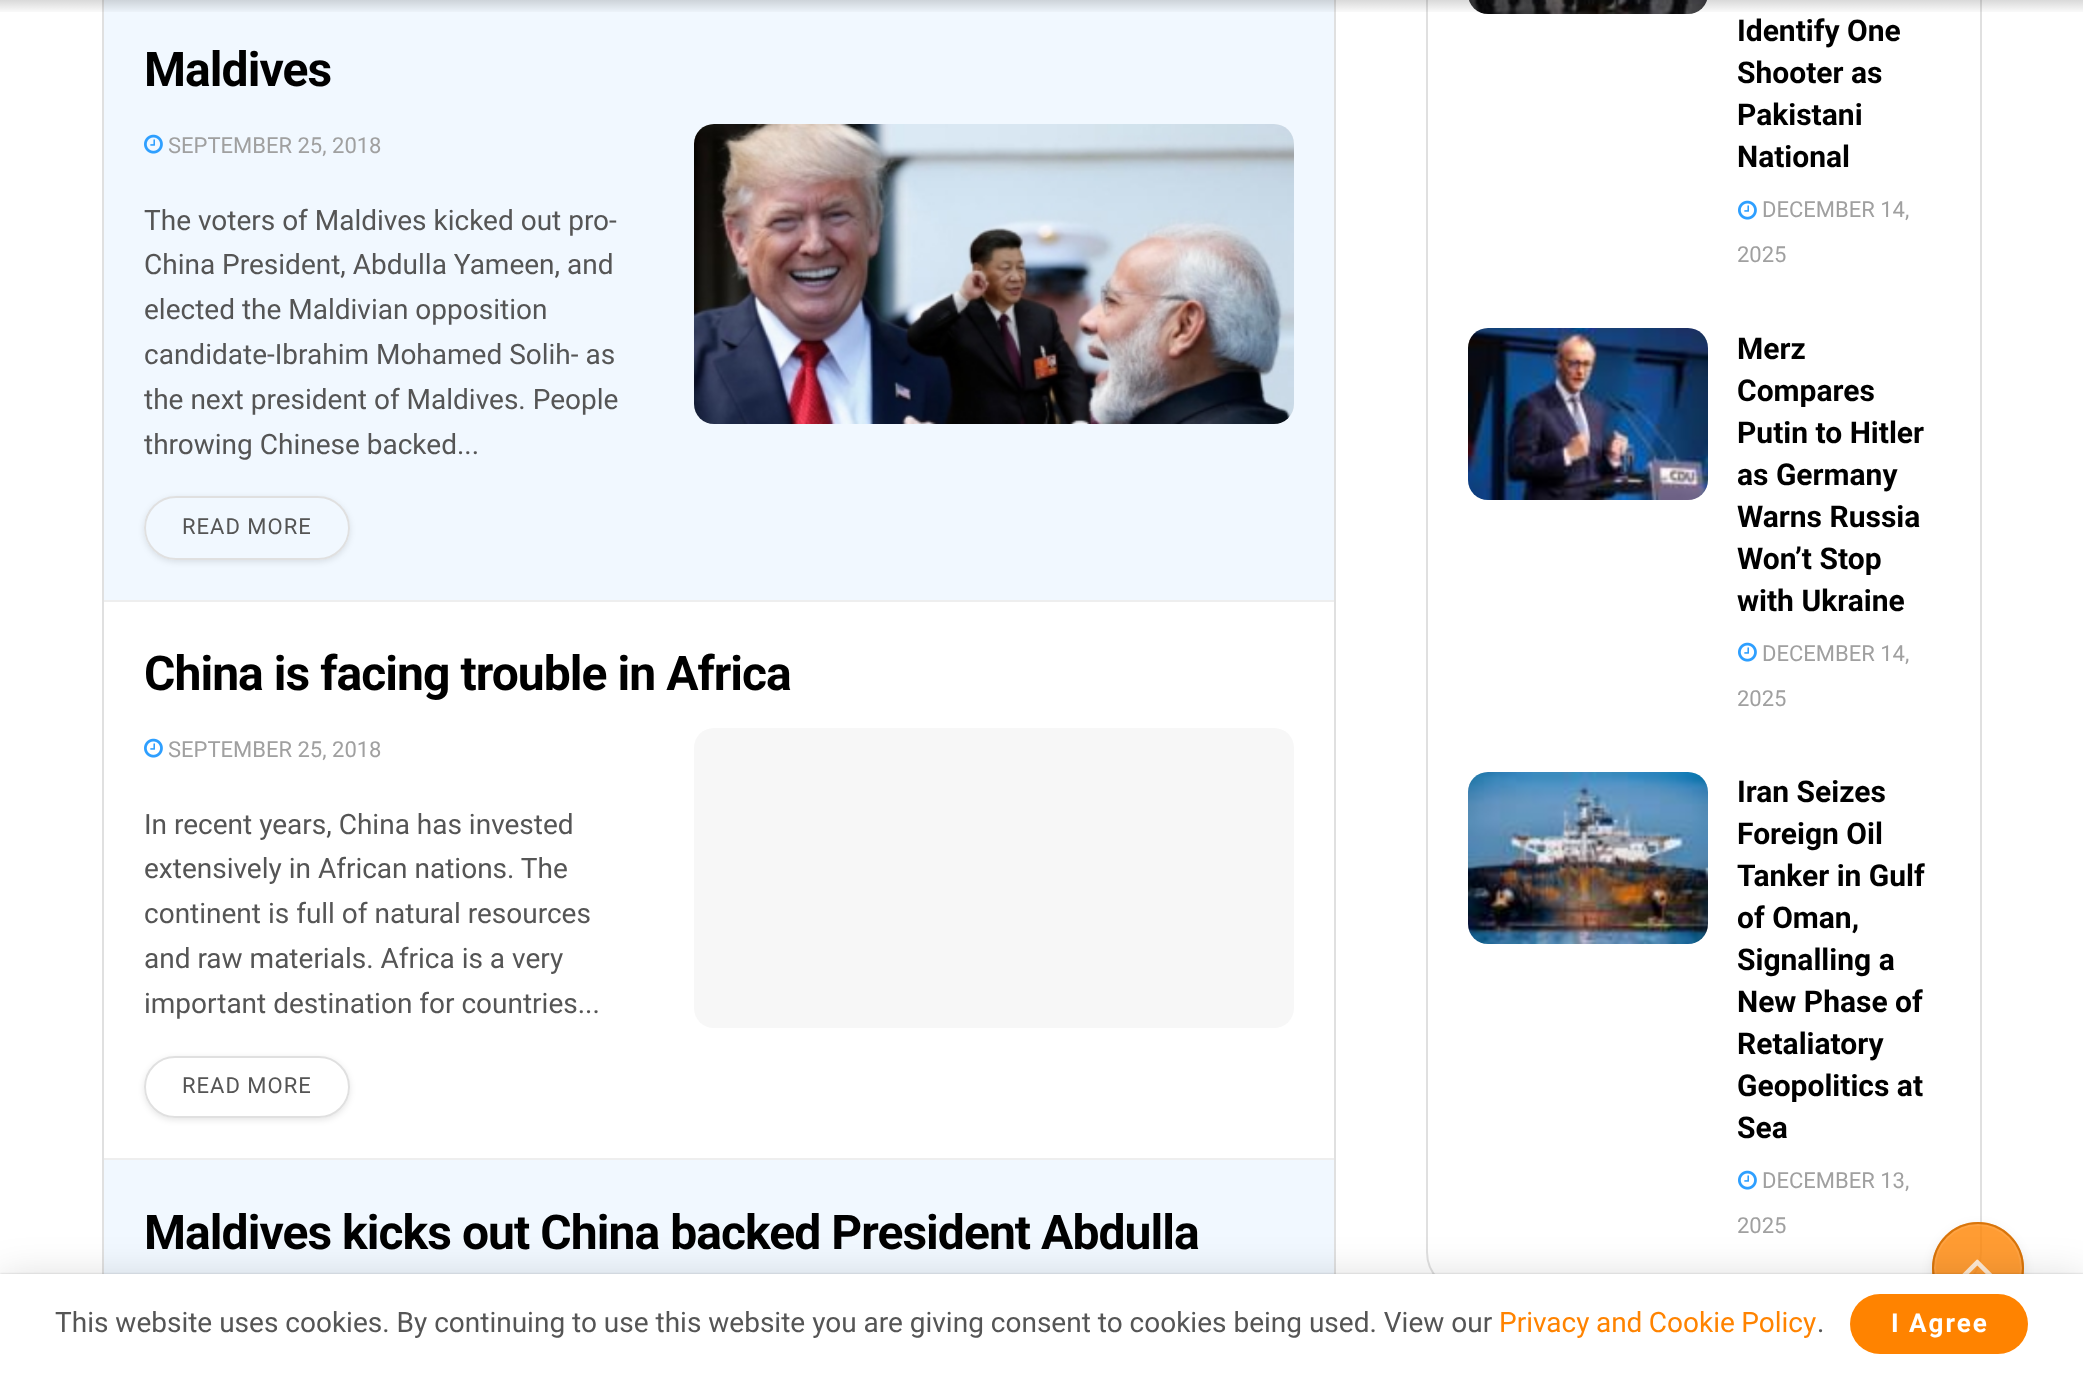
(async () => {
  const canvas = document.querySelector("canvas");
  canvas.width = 2083;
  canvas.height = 1374;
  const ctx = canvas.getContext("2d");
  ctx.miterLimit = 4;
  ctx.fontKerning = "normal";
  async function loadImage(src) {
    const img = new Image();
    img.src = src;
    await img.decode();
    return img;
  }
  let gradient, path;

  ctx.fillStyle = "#ffffff";
  ctx.fillRect(0, 0, 2083, 1374);
  ctx.strokeStyle = "#e0e0e0";
  ctx.lineWidth = 2;
  ctx.strokeRect(103, -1, 1232, 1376);
  ctx.fillStyle = "#f1f8ff";
  ctx.fillRect(104, 0, 1230, 600);
  ctx.beginPath();
  ctx.roundRect(1427, -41, 554, 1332, 39);
  ctx.stroke();
  ctx.drawImage(await loadImage("img/4.png"), 1469, 0, 238, 14);
  gradient = ctx.createLinearGradient(1042, 0, 1042, 14);
  gradient.addColorStop(0, "rgba(0, 0, 0, 0.15)");
  gradient.addColorStop(1, "rgba(0, 0, 0, 0)");
  ctx.fillStyle = gradient;
  ctx.fillRect(0, 0, 2083, 12);
  ctx.fillStyle = "#eeeeee";
  ctx.fillRect(104, 600, 1230, 2);
  ctx.drawImage(await loadImage("img/1.png"), 144, 134, 19, 20);
  ctx.save();
  path = new Path2D("M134 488H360V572H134ZM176 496H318C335.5 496 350 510.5 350 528C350 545.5 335.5 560 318 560H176C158.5 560 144 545.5 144 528C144 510.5 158.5 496 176 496Z");
  ctx.clip(path, "evenodd");
  ctx.fillStyle = "rgba(0, 0, 0, 0.1)";
  ctx.filter = "blur(3px)";
  ctx.beginPath();
  ctx.roundRect(144, 498, 206, 64, 32);
  ctx.fill();
  ctx.filter = "none";
  ctx.restore();
  ctx.beginPath();
  ctx.roundRect(145, 497, 204, 62, 31);
  ctx.stroke();
  ctx.fillStyle = "#f7f7f7";
  ctx.beginPath();
  ctx.roundRect(694, 124, 600, 300, 20);
  ctx.fill();
  ctx.drawImage(await loadImage("img/2.png"), 694, 124, 600, 300);
  ctx.fillStyle = "#eeeeee";
  ctx.fillRect(104, 1158, 1230, 2);
  ctx.drawImage(await loadImage("img/3.png"), 144, 738, 19, 20);
  ctx.save();
  path = new Path2D("M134 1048H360V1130H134ZM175 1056H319C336 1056 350 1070 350 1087C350 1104 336 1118 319 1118H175C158 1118 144 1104 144 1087C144 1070 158 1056 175 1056Z");
  ctx.clip(path, "evenodd");
  ctx.fillStyle = "rgba(0, 0, 0, 0.1)";
  ctx.filter = "blur(3px)";
  ctx.beginPath();
  ctx.roundRect(144, 1058, 206, 62, 31);
  ctx.fill();
  ctx.filter = "none";
  ctx.restore();
  ctx.beginPath();
  ctx.roundRect(145, 1057, 204, 60, 30);
  ctx.stroke();
  ctx.fillStyle = "#f7f7f7";
  ctx.beginPath();
  ctx.roundRect(694, 728, 600, 300, 20);
  ctx.fill();
  ctx.fillStyle = "#f1f8ff";
  ctx.fillRect(104, 1160, 1230, 114);
  ctx.drawImage(await loadImage("img/3.png"), 1738, 200, 19, 20);
  ctx.fillStyle = "#f7f7f7";
  ctx.beginPath();
  ctx.roundRect(1468, 328, 240, 172, 20);
  ctx.fill();
  ctx.drawImage(await loadImage("img/5.png"), 1468, 328, 240, 172);
  ctx.drawImage(await loadImage("img/3.png"), 1738, 642, 19, 20);
  ctx.beginPath();
  ctx.roundRect(1468, 772, 240, 172, 20);
  ctx.fill();
  ctx.drawImage(await loadImage("img/6.png"), 1468, 772, 240, 172);
  ctx.drawImage(await loadImage("img/3.png"), 1738, 1170, 19, 20);
  ctx.save();
  path = new Path2D("M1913 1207H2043V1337H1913ZM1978 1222C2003.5 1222 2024 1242.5 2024 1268C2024 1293.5 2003.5 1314 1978 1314C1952.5 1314 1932 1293.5 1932 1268C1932 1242.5 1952.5 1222 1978 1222Z");
  ctx.clip(path, "evenodd");
  ctx.fillStyle = "rgba(0, 0, 0, 0.08)";
  ctx.filter = "blur(6px)";
  ctx.beginPath();
  ctx.roundRect(1932, 1226, 92, 92, 46);
  ctx.fill();
  ctx.filter = "none";
  ctx.restore();
  ctx.fillStyle = "rgba(255, 131, 0, 0.8)";
  ctx.beginPath();
  ctx.arc(1978, 1268, 46, 0, Math.PI * 2);
  ctx.fill();
  ctx.beginPath();
  ctx.arc(1978, 1268, 43, 0, Math.PI * 2);
  ctx.strokeStyle = "rgba(255, 255, 255, 0.08)";
  ctx.stroke();
  ctx.beginPath();
  ctx.arc(1978, 1268, 45, 0, Math.PI * 2);
  ctx.strokeStyle = "rgba(206, 106, 0, 0.8)";
  ctx.stroke();
  ctx.drawImage(await loadImage("img/7.png"), 1962, 1259, 31, 15);
  ctx.fillStyle = "rgba(0, 0, 0, 0.15)";
  ctx.filter = "blur(20px)";
  ctx.beginPath();
  ctx.rect(0, 1278, 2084, 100);
  ctx.fill();
  ctx.filter = "none";
  ctx.fillStyle = "rgba(0, 0, 0, 0.2)";
  ctx.filter = "blur(1px)";
  ctx.beginPath();
  ctx.rect(0, 1274, 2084, 100);
  ctx.fill();
  ctx.filter = "none";
  ctx.fillStyle = "#ffffff";
  ctx.fillRect(0, 1274, 2083, 100);
  ctx.fillStyle = "#ff8300";
  ctx.beginPath();
  ctx.roundRect(1850, 1294, 178, 60, 30);
  ctx.fill();
  ctx.letterSpacing = "-0.95px";
  ctx.font = "bold 48px Roboto";
  ctx.fillStyle = "#000000";
  ctx.fillText("Maldives", 144, 86);
  ctx.letterSpacing = "0px";
  ctx.font = "22px Roboto";
  ctx.fillStyle = "#a0a0a0";
  ctx.fillText("SEPTEMBER 25, 2018", 168, 153);
  ctx.font = "28px Roboto";
  ctx.fillStyle = "#555555";
  for (const [text, x, y] of [
    ["The voters of Maldives kicked out pro-", 144, 230],
    ["China President, Abdulla Yameen, and", 144, 274],
    ["elected the Maldivian opposition", 144, 319],
    ["candidate-Ibrahim Mohamed Solih- as", 144, 364],
    ["the next president of Maldives. People", 144, 409],
    ["throwing Chinese backed...", 144, 454],
  ]) {
    ctx.fillText(text, x, y);
  }
  ctx.letterSpacing = "1px";
  ctx.font = "22px Roboto";
  ctx.fillText("READ MORE", 182, 534);
  ctx.letterSpacing = "-0.95px";
  ctx.font = "bold 48px Roboto";
  ctx.fillStyle = "#000000";
  ctx.fillText("China is facing trouble in Africa", 144, 690);
  ctx.letterSpacing = "0px";
  ctx.font = "22px Roboto";
  ctx.fillStyle = "#a0a0a0";
  ctx.fillText("SEPTEMBER 25, 2018", 168, 757);
  ctx.font = "28px Roboto";
  ctx.fillStyle = "#555555";
  for (const [text, x, y] of [
    ["In recent years, China has invested", 144, 834],
    ["extensively in African nations. The", 144, 878],
    ["continent is full of natural resources", 144, 923],
    ["and raw materials. Africa is a very", 144, 968],
    ["important destination for countries...", 144, 1013],
  ]) {
    ctx.fillText(text, x, y);
  }
  ctx.letterSpacing = "1px";
  ctx.font = "22px Roboto";
  ctx.fillText("READ MORE", 182, 1093);
  ctx.letterSpacing = "-0.95px";
  ctx.font = "bold 48px Roboto";
  ctx.fillStyle = "#000000";
  ctx.fillText("Maldives kicks out China backed President Abdulla", 144, 1249);
  ctx.letterSpacing = "0px";
  ctx.font = "bold 30px Roboto";
  for (const [text, x, y] of [
    ["Identify One", 1737, 41],
    ["Shooter as", 1737, 83],
    ["Pakistani", 1737, 125],
    ["National", 1737, 167],
  ]) {
    ctx.fillText(text, x, y);
  }
  ctx.font = "22px Roboto";
  ctx.fillStyle = "#a0a0a0";
  ctx.fillText("DECEMBER 14,", 1762, 217);
  ctx.fillText("2025", 1737, 262);
  ctx.font = "bold 30px Roboto";
  ctx.fillStyle = "#000000";
  for (const [text, x, y] of [
    ["Merz", 1737, 359],
    ["Compares", 1737, 401],
    ["Putin to Hitler", 1737, 443],
    ["as Germany", 1737, 485],
    ["Warns Russia", 1737, 527],
    ["Won’t Stop", 1737, 569],
    ["with Ukraine", 1737, 611],
  ]) {
    ctx.fillText(text, x, y);
  }
  ctx.font = "22px Roboto";
  ctx.fillStyle = "#a0a0a0";
  ctx.fillText("DECEMBER 14,", 1762, 661);
  ctx.fillText("2025", 1737, 706);
  ctx.font = "bold 30px Roboto";
  ctx.fillStyle = "#000000";
  for (const [text, x, y] of [
    ["Iran Seizes", 1737, 802],
    ["Foreign Oil", 1737, 844],
    ["Tanker in Gulf", 1737, 886],
    ["of Oman,", 1737, 928],
    ["Signalling a", 1737, 970],
    ["New Phase of", 1737, 1012],
    ["Retaliatory", 1737, 1054],
    ["Geopolitics at", 1737, 1096],
    ["Sea", 1737, 1138],
  ]) {
    ctx.fillText(text, x, y);
  }
  ctx.font = "22px Roboto";
  ctx.fillStyle = "#a0a0a0";
  ctx.fillText("DECEMBER 13,", 1762, 1188);
  ctx.fillText("2025", 1737, 1233);
  ctx.font = "28px Roboto";
  ctx.fillStyle = "#555555";
  ctx.fillText("This website uses cookies. By continuing to use this website you are giving consent to cookies being used. View our", 55, 1332);
  ctx.wordSpacing = "-0.5px";
  ctx.fillStyle = "#ff8300";
  ctx.fillText("Privacy and Cookie Policy", 1499, 1332);
  ctx.wordSpacing = "0px";
  ctx.fillStyle = "#555555";
  ctx.fillText(".", 1817, 1332);
  ctx.letterSpacing = "2px";
  ctx.font = "bold 26px Roboto";
  ctx.fillStyle = "#ffffff";
  ctx.fillText("I Agree", 1891, 1332);
})();
